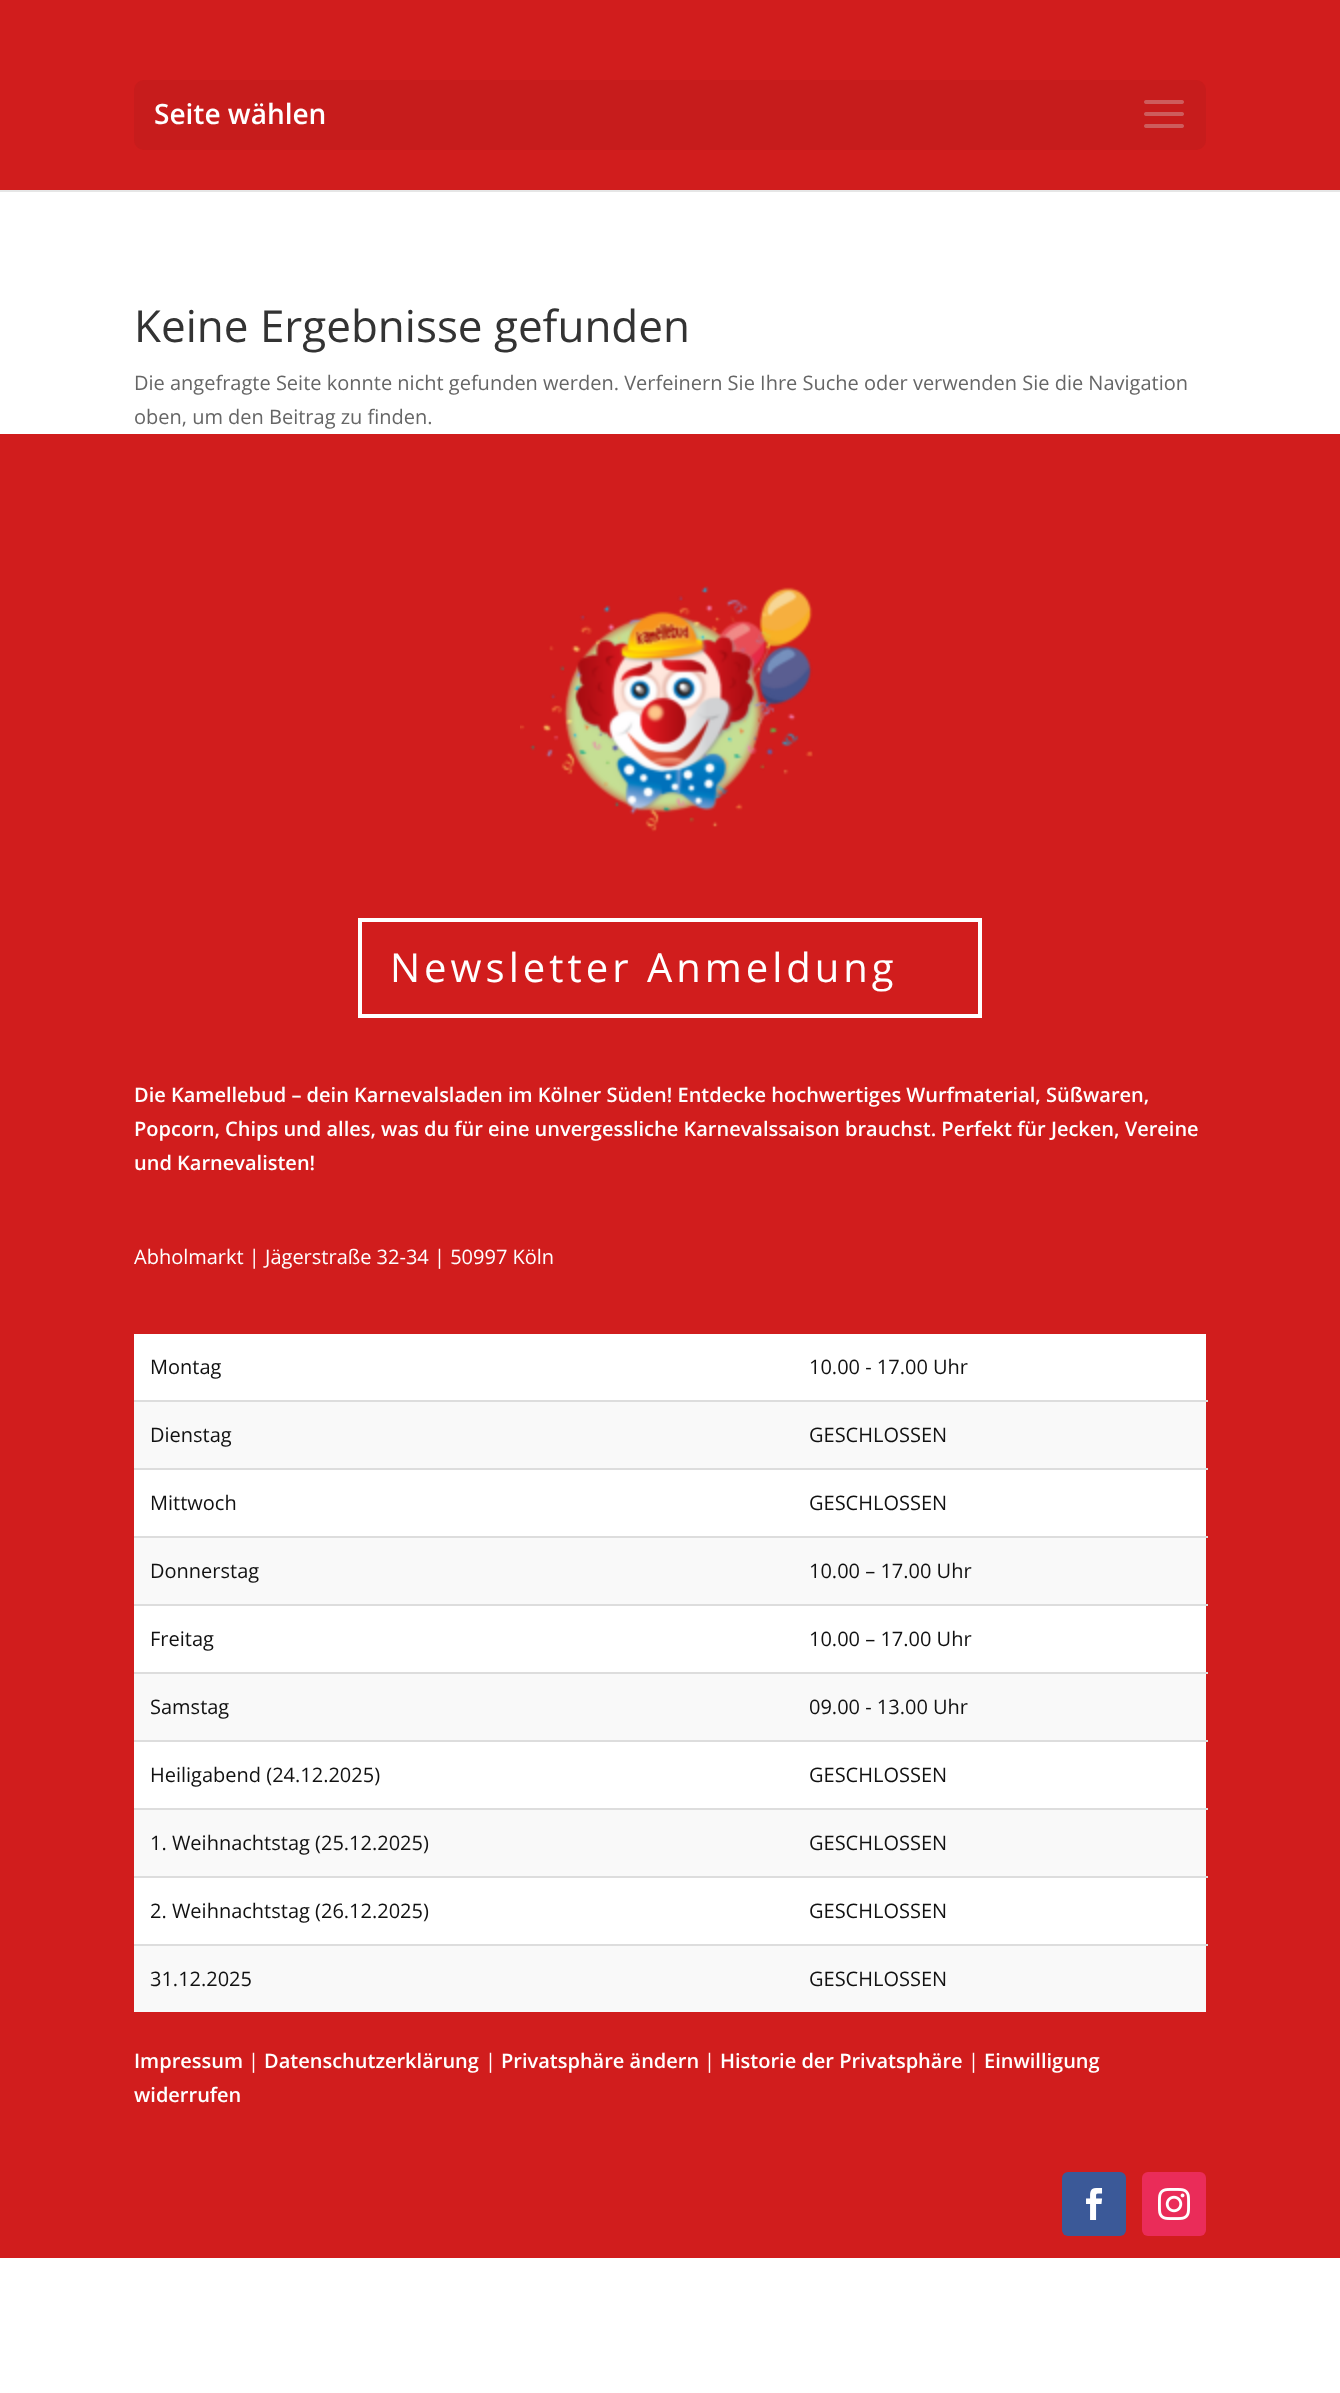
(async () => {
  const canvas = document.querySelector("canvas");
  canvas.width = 1340;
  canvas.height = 2393;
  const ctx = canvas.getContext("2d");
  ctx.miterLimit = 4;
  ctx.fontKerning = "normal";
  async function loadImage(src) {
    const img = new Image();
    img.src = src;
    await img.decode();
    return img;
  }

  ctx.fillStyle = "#ffffff";
  ctx.fillRect(0, 0, 1340, 2393);
  ctx.fillStyle = "#e6e6e6";
  ctx.fillRect(0, 190, 1340, 2);
  ctx.fillStyle = "#d11d1d";
  ctx.fillRect(0, 0, 1340, 190);
  ctx.fillStyle = "#c71c1c";
  ctx.beginPath();
  ctx.roundRect(134, 80, 1072, 70, 10);
  ctx.fill();
  ctx.drawImage(await loadImage("img/1.png"), 1144, 100, 40, 28);
  ctx.fillStyle = "#d11d1d";
  ctx.fillRect(0, 434, 1340, 1824);
  ctx.drawImage(await loadImage("img/2.png"), 520, 586, 293, 246);
  ctx.strokeStyle = "#ffffff";
  ctx.lineWidth = 4;
  ctx.strokeRect(360, 920, 620, 96);
  for (const [x, y, w, h, color] of [
    [134, 1334, 1072, 66, "#ffffff"],
    [134, 1402, 1072, 66, "#f9f9f9"],
    [134, 1400, 1074, 2, "#dddddd"],
    [134, 1470, 1072, 66, "#ffffff"],
    [134, 1468, 1074, 2, "#dddddd"],
    [134, 1538, 1072, 66, "#f9f9f9"],
    [134, 1536, 1074, 2, "#dddddd"],
    [134, 1606, 1072, 66, "#ffffff"],
    [134, 1604, 1074, 2, "#dddddd"],
    [134, 1674, 1072, 66, "#f9f9f9"],
    [134, 1672, 1074, 2, "#dddddd"],
    [134, 1742, 1072, 66, "#ffffff"],
    [134, 1740, 1074, 2, "#dddddd"],
    [134, 1810, 1072, 66, "#f9f9f9"],
    [134, 1808, 1074, 2, "#dddddd"],
    [134, 1878, 1072, 66, "#ffffff"],
    [134, 1876, 1074, 2, "#dddddd"],
    [134, 1946, 1072, 66, "#f9f9f9"],
    [134, 1944, 1074, 2, "#dddddd"],
  ]) {
    ctx.fillStyle = color;
    ctx.fillRect(x, y, w, h);
  }
  ctx.fillStyle = "#3b5998";
  ctx.beginPath();
  ctx.roundRect(1062, 2172, 64, 64, 6);
  ctx.fill();
  ctx.drawImage(await loadImage("img/3.png"), 1086, 2188, 17, 32);
  ctx.fillStyle = "#ea2c59";
  ctx.beginPath();
  ctx.roundRect(1142, 2172, 64, 64, 6);
  ctx.fill();
  ctx.drawImage(await loadImage("img/4.png"), 1158, 2188, 32, 32);
  ctx.font = "600 28px Open Sans";
  ctx.fillStyle = "#ffffff";
  ctx.fillText("Seite wählen", 154, 124);
  ctx.font = "44px Open Sans";
  ctx.fillStyle = "#333333";
  ctx.fillText("Keine Ergebnisse gefunden", 134, 342);
  ctx.font = "20px Open Sans";
  ctx.fillStyle = "#666666";
  ctx.fillText("Die angefragte Seite konnte nicht gefunden werden. Verfeinern Sie Ihre Suche oder verwenden Sie die Navigation", 134, 390);
  ctx.fillText("oben, um den Beitrag zu finden.", 134, 424);
  ctx.letterSpacing = "4px";
  ctx.font = "40px Open Sans";
  ctx.fillStyle = "#ffffff";
  ctx.fillText("Newsletter Anmeldung", 390, 982);
  ctx.letterSpacing = "0px";
  ctx.font = "600 20px Open Sans";
  for (const [text, x, y] of [
    ["Die Kamellebud – dein Karnevalsladen im Kölner Süden! Entdecke hochwertiges Wurfmaterial, Süßwaren,", 134, 1102],
    ["Popcorn, Chips und alles, was du für eine unvergessliche Karnevalssaison brauchst. Perfekt für Jecken, Vereine", 134, 1136],
    ["und Karnevalisten!", 134, 1170],
  ]) {
    ctx.fillText(text, x, y);
  }
  ctx.font = "20px Open Sans";
  ctx.fillText("Abholmarkt | Jägerstraße 32-34 | 50997 Köln", 134, 1264);
  ctx.fillStyle = "#111111";
  for (const [text, x, y] of [
    ["Montag", 150, 1374],
    ["10.00 - 17.00 Uhr", 809, 1374],
    ["Dienstag", 150, 1442],
    ["GESCHLOSSEN", 809, 1442],
    ["Mittwoch", 150, 1510],
    ["GESCHLOSSEN", 809, 1510],
    ["Donnerstag", 150, 1578],
    ["10.00 – 17.00 Uhr", 809, 1578],
    ["Freitag", 150, 1646],
    ["10.00 – 17.00 Uhr", 809, 1646],
    ["Samstag", 150, 1714],
    ["09.00 - 13.00 Uhr", 809, 1714],
    ["Heiligabend (24.12.2025)", 150, 1782],
    ["GESCHLOSSEN", 809, 1782],
    ["1. Weihnachtstag (25.12.2025)", 150, 1850],
    ["GESCHLOSSEN", 809, 1850],
    ["2. Weihnachtstag (26.12.2025)", 150, 1918],
    ["GESCHLOSSEN", 809, 1918],
    ["31.12.2025", 150, 1986],
    ["GESCHLOSSEN", 809, 1986],
  ]) {
    ctx.fillText(text, x, y);
  }
  ctx.font = "600 20px Open Sans";
  ctx.fillStyle = "#ffffff";
  ctx.fillText("Impressum", 134, 2068);
  ctx.font = "20px Open Sans";
  ctx.fillText("|", 248, 2068);
  ctx.font = "600 20px Open Sans";
  ctx.fillText("Datenschutzerklärung", 264, 2068);
  ctx.font = "20px Open Sans";
  ctx.fillText("|", 485, 2068);
  ctx.font = "600 20px Open Sans";
  ctx.fillText("Privatsphäre ändern", 501, 2068);
  ctx.font = "20px Open Sans";
  ctx.fillText("|", 704, 2068);
  ctx.font = "600 20px Open Sans";
  ctx.fillText("Historie der Privatsphäre", 720, 2068);
  ctx.font = "20px Open Sans";
  ctx.fillText("|", 968, 2068);
  ctx.font = "600 20px Open Sans";
  ctx.fillText("Einwilligung", 984, 2068);
  ctx.fillText("widerrufen", 134, 2102);
})();
